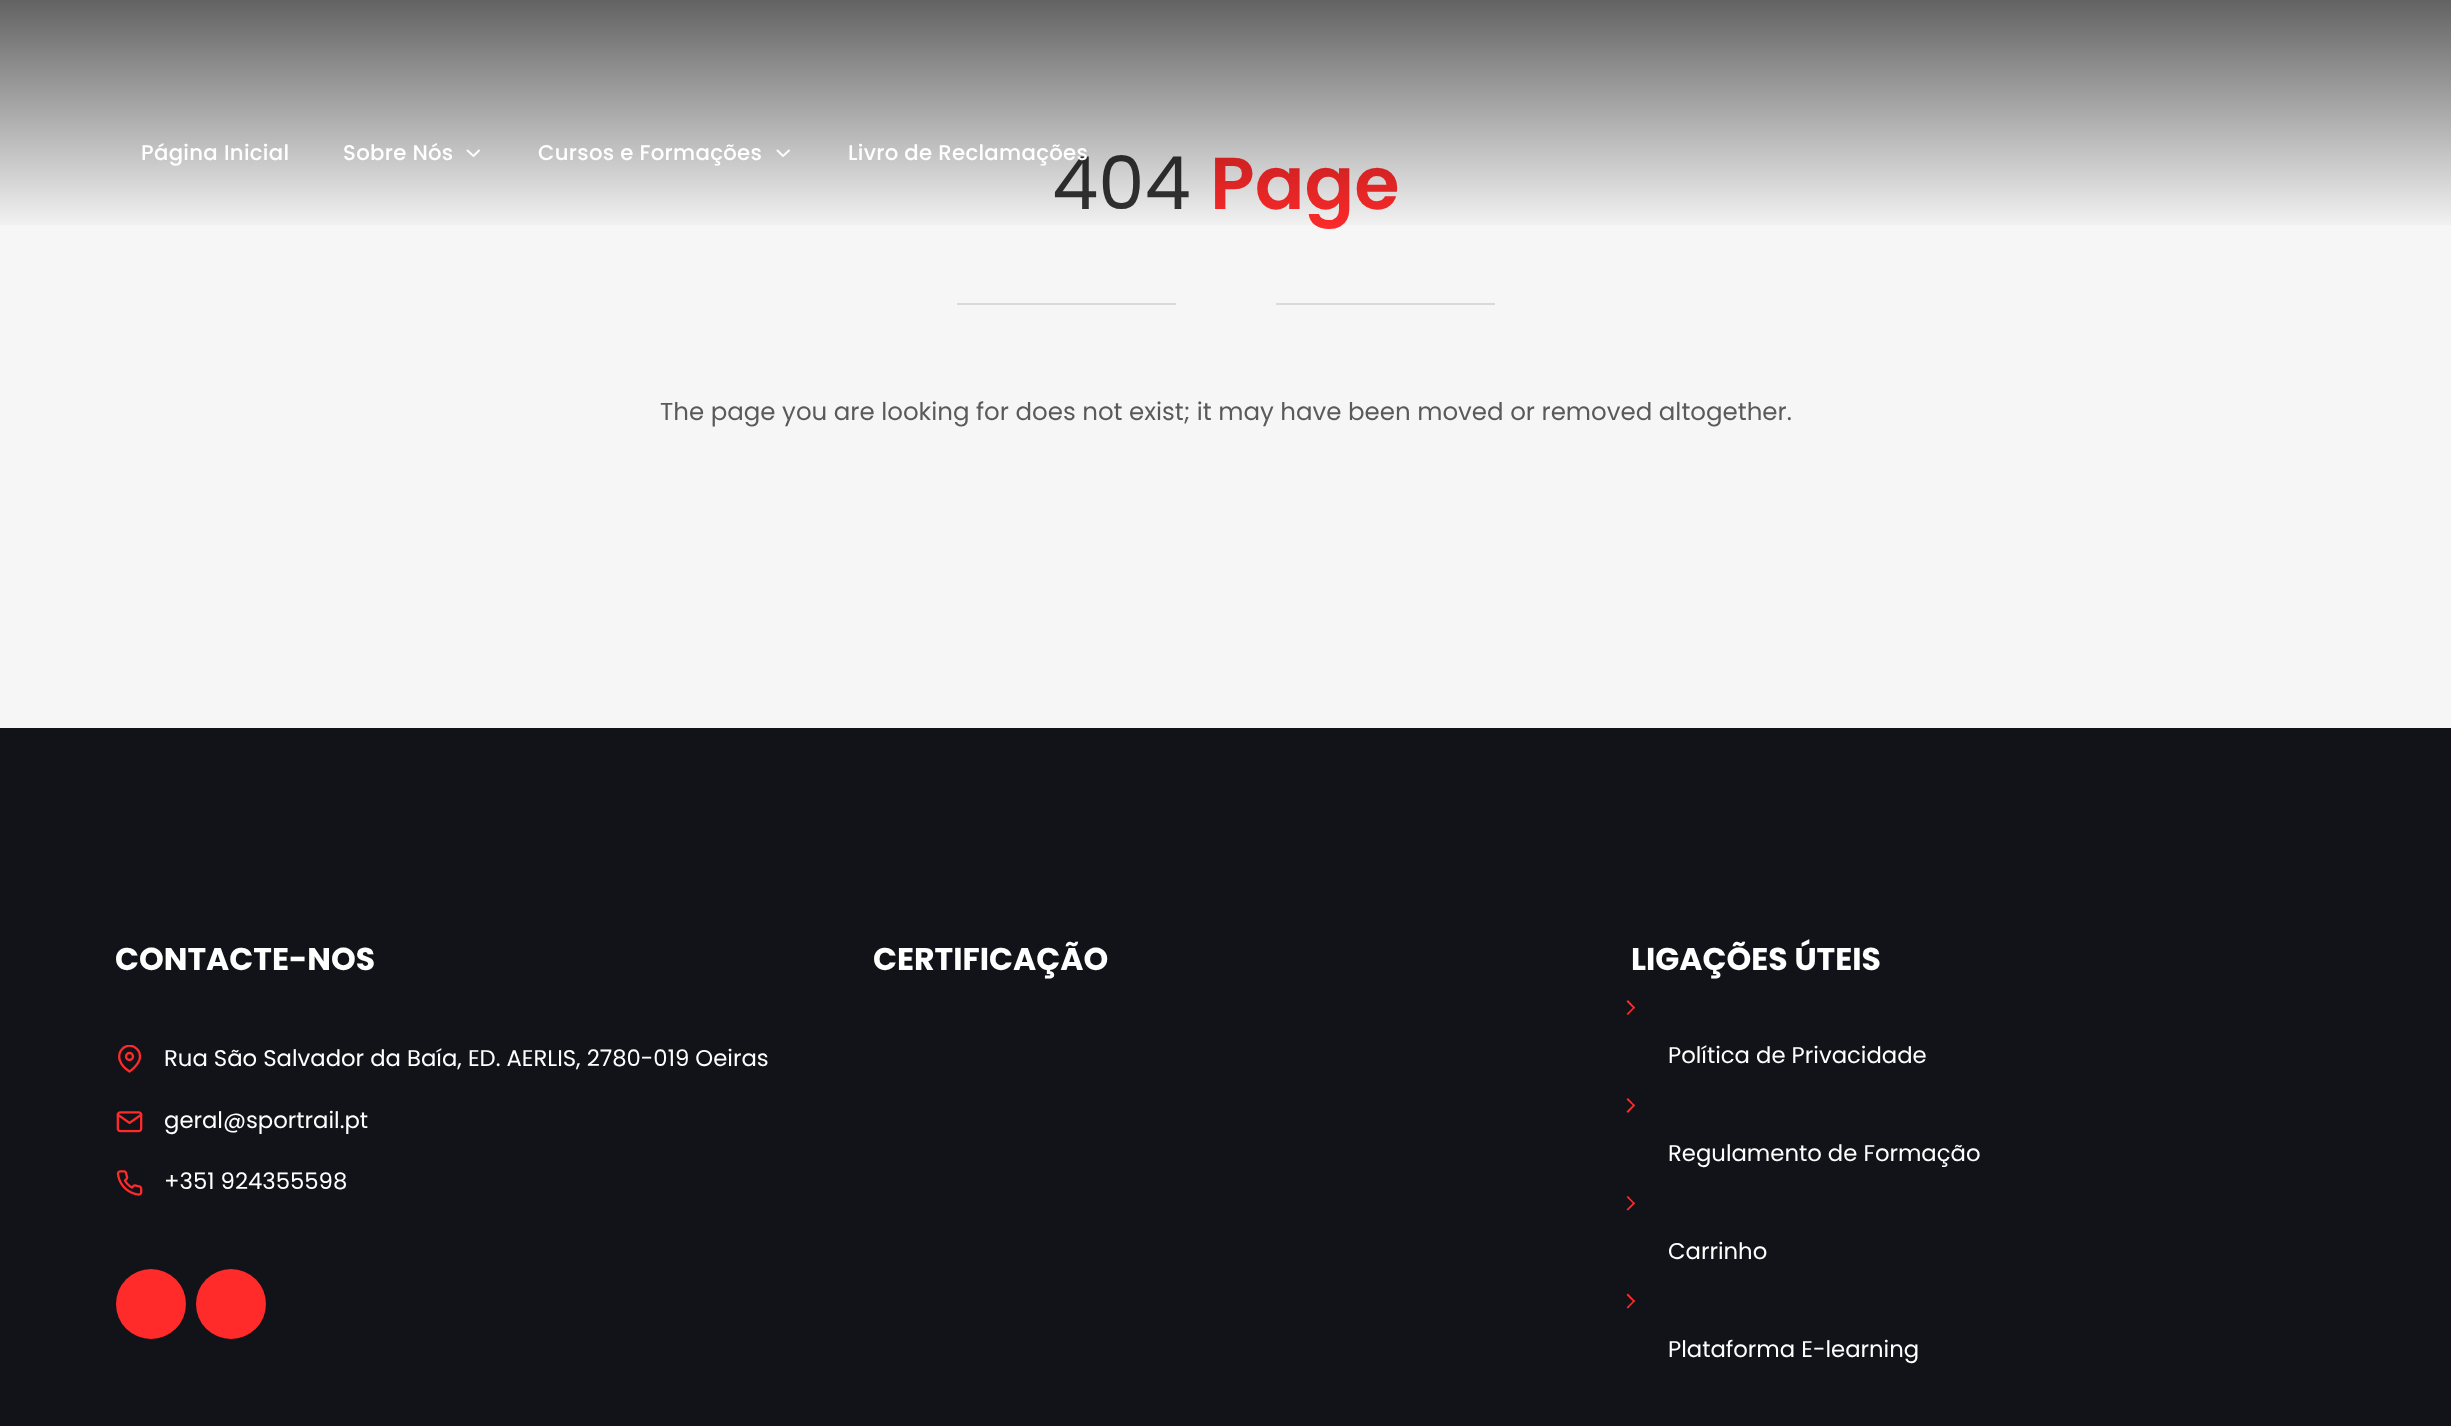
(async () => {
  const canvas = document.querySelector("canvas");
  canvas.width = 2451;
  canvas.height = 1426;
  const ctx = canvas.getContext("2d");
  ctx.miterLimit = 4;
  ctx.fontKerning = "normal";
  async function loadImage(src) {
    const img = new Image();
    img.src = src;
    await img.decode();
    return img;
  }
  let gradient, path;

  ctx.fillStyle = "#f6f6f6";
  ctx.fillRect(0, 0, 2451, 1426);
  for (const [x, y, w, h, color] of [
    [957, 303, 219, 2, "#d9d9d9"],
    [1276, 303, 219, 2, "#d9d9d9"],
    [0, 728, 2451, 698, "#121219"],
  ]) {
    ctx.fillStyle = color;
    ctx.fillRect(x, y, w, h);
  }
  ctx.save();
  ctx.beginPath();
  ctx.rect(116, 1045, 28, 28);
  ctx.clip();
  path = new Path2D("M140 1056.5C140 1064.5 129.5 1071.5 129.5 1071.5C107.5 1057 126 1038 137 1049C139 1051 140 1053.5 140 1056.5Z");
  ctx.strokeStyle = "#ff2a2a";
  ctx.lineWidth = 2.3;
  ctx.lineCap = "round";
  ctx.lineJoin = "round";
  ctx.stroke(path);
  ctx.restore();
  ctx.beginPath();
  ctx.arc(129.5, 1056.5, 3.5, 0, Math.PI * 2);
  ctx.strokeStyle = "#ff2a2a";
  ctx.lineWidth = 2.3;
  ctx.stroke();
  ctx.drawImage(await loadImage("img/1.png"), 116, 1111, 27, 22);
  ctx.drawImage(await loadImage("img/2.png"), 116, 1170, 27, 26);
  ctx.fillStyle = "#ff2a2a";
  ctx.beginPath();
  ctx.arc(151, 1304, 35, 0, Math.PI * 2);
  ctx.fill();
  ctx.beginPath();
  ctx.arc(231, 1304, 35, 0, Math.PI * 2);
  ctx.fill();
  path = new Path2D("M1635 1007.5L1628 1015L1626.5 1014L1634 1006.5Z");
  ctx.fill(path);
  path = new Path2D("M1635 1007.5L1634 1009L1626.5 1001.5L1628 1000Z");
  ctx.fill(path);
  path = new Path2D("M1635 1105.5L1628 1113L1626.5 1111.5L1634 1104Z");
  ctx.fill(path);
  path = new Path2D("M1635 1105.5L1634 1106.5L1626.5 1099.5L1628 1098Z");
  ctx.fill(path);
  path = new Path2D("M1635 1203.5L1628 1210.5L1626.5 1209.5L1634 1202Z");
  ctx.fill(path);
  path = new Path2D("M1635 1203.5L1634 1204.5L1626.5 1197L1628 1196Z");
  ctx.fill(path);
  path = new Path2D("M1635 1301L1628 1308.5L1626.5 1307.5L1634 1300Z");
  ctx.fill(path);
  path = new Path2D("M1635 1301L1634 1302.5L1626.5 1295L1628 1293.5Z");
  ctx.fill(path);
  ctx.font = "73.5px Poppins";
  ctx.fillStyle = "#333333";
  ctx.fillText("404", 1052, 209);
  ctx.font = "600 73.5px Poppins";
  ctx.fillStyle = "#ff2a2a";
  ctx.fillText("Page", 1210, 209);
  gradient = ctx.createLinearGradient(1226, 0, 1226, 233);
  gradient.addColorStop(0, "rgba(0, 0, 0, 0.6)");
  gradient.addColorStop(1, "rgba(0, 0, 0, 0)");
  ctx.fillStyle = gradient;
  ctx.fillRect(0, 0, 2451, 225);
  path = new Path2D("M777.5 150.5L783 156L789 150.5");
  ctx.strokeStyle = "#ffffff";
  ctx.lineWidth = 1.9;
  ctx.lineCap = "round";
  ctx.lineJoin = "round";
  ctx.stroke(path);
  ctx.letterSpacing = "0.3px";
  ctx.font = "500 21.25px Poppins";
  ctx.fillStyle = "#ffffff";
  ctx.fillText("Cursos e Formações", 538, 160);
  path = new Path2D("M467.5 150.5L473.5 156L479 150.5");
  ctx.stroke(path);
  for (const [text, x, y] of [
    ["Sobre Nós", 343, 160],
    ["Livro de Reclamações", 848, 160],
    ["Página Inicial", 141, 160],
  ]) {
    ctx.fillText(text, x, y);
  }
  ctx.letterSpacing = "0px";
  ctx.font = "24.5px Poppins";
  ctx.fillStyle = "#5a5a5a";
  ctx.fillText("The page you are looking for does not exist; it may have been moved or removed altogether.", 660, 420);
  ctx.font = "bold 31.5px Poppins";
  ctx.fillStyle = "#ffffff";
  ctx.fillText("CONTACTE-NOS", 115, 970);
  ctx.font = "22.75px Poppins";
  for (const [text, x, y] of [
    ["Rua São Salvador da Baía, ED. AERLIS, 2780-019 Oeiras", 164, 1066],
    ["geral@sportrail.pt", 164, 1128],
    ["+351 924355598", 164, 1189],
  ]) {
    ctx.fillText(text, x, y);
  }
  ctx.font = "bold 31.5px Poppins";
  ctx.fillText("CERTIFICAÇÃO", 873, 970);
  ctx.fillText("LIGAÇÕES ÚTEIS", 1631, 970);
  ctx.font = "22.75px Poppins";
  for (const [text, x, y] of [
    ["Política de Privacidade", 1668, 1063],
    ["Regulamento de Formação", 1668, 1161],
    ["Carrinho", 1668, 1259],
    ["Plataforma E-learning", 1668, 1357],
  ]) {
    ctx.fillText(text, x, y);
  }
})();
